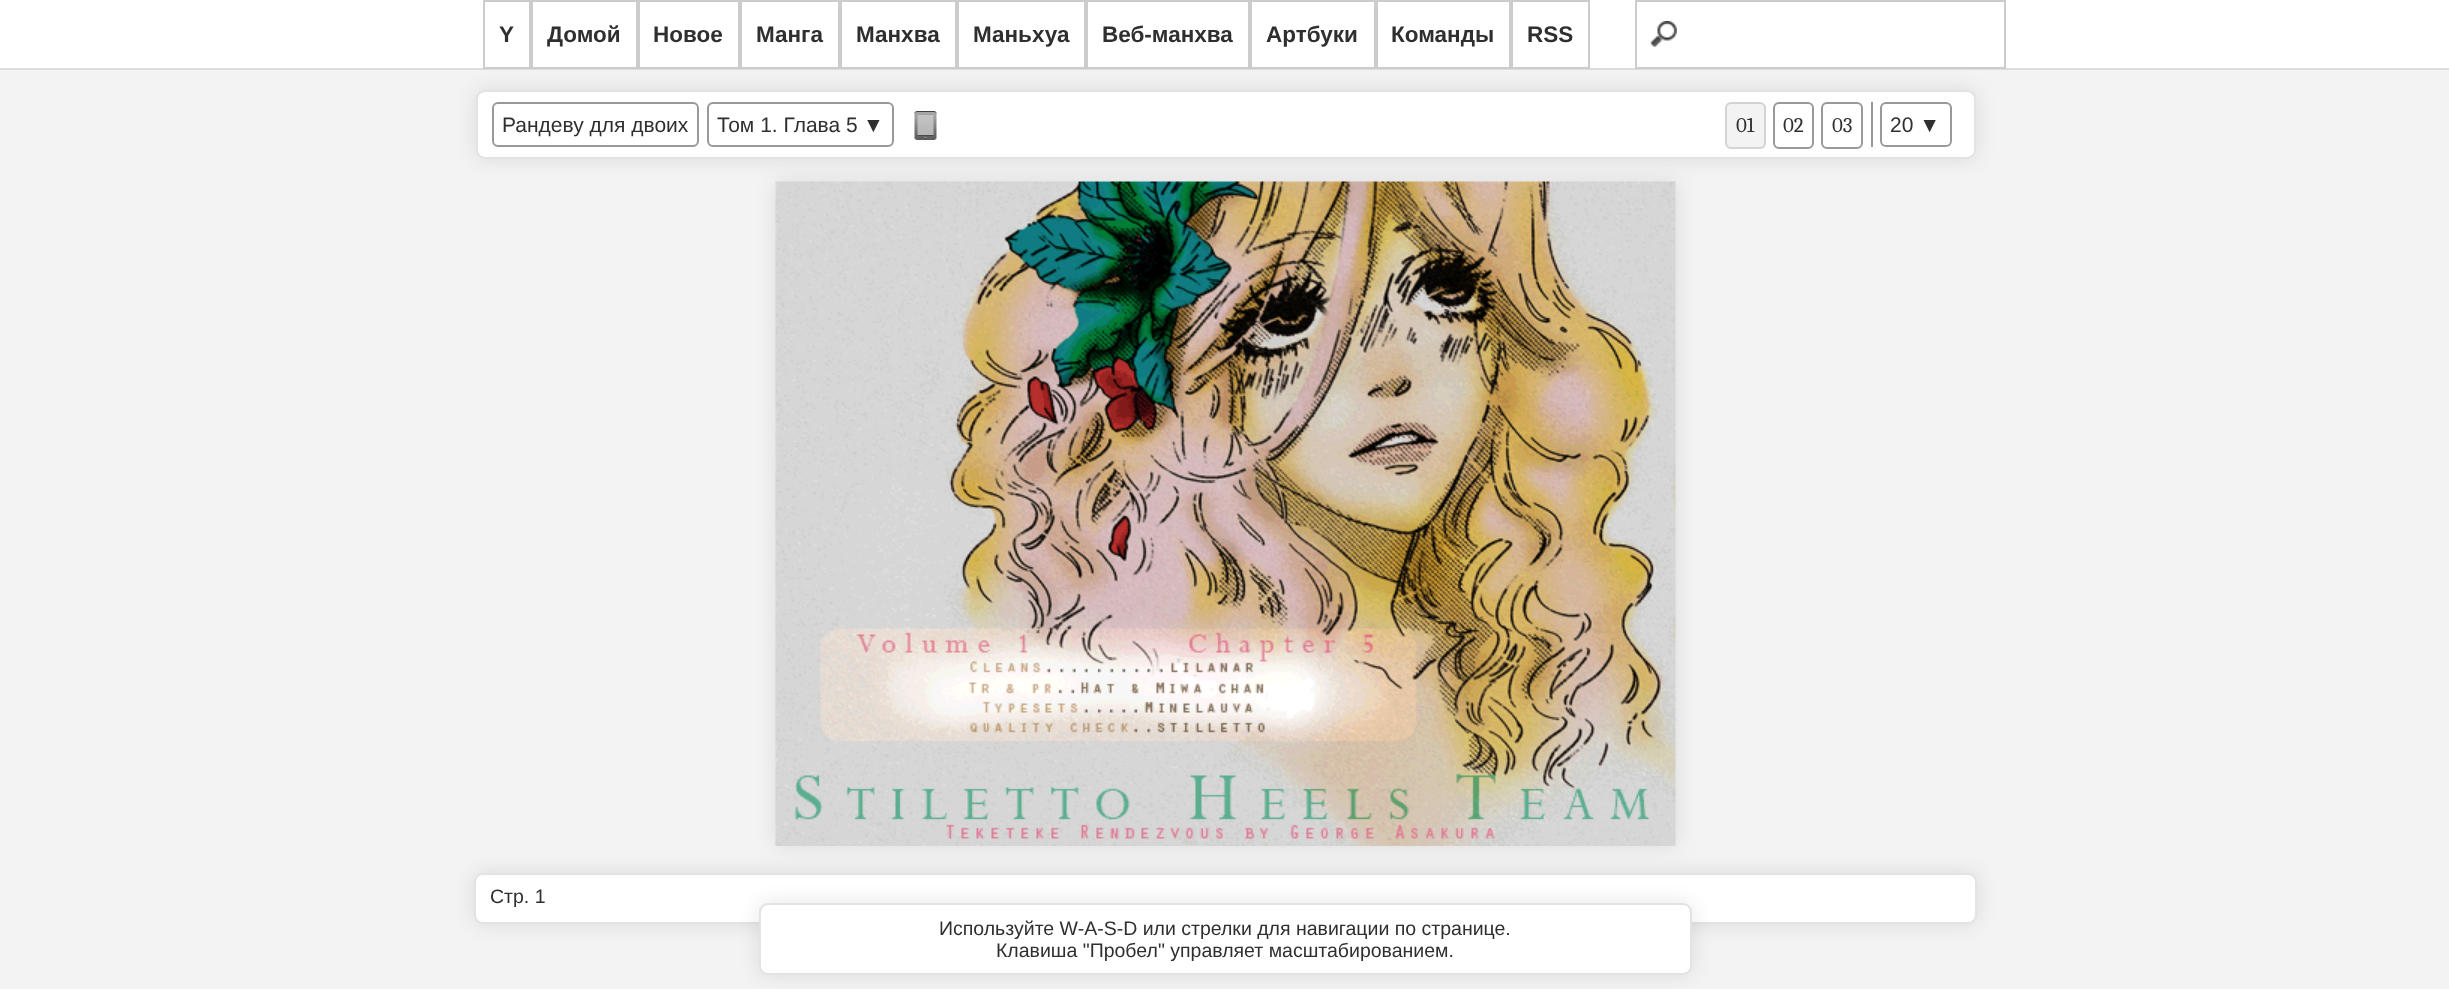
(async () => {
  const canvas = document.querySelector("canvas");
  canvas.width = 2449;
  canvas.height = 989;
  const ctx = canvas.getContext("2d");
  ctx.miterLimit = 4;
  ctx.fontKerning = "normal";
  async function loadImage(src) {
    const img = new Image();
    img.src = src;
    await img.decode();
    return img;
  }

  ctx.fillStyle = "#f3f3f3";
  ctx.fillRect(0, 0, 2449, 989);
  ctx.fillStyle = "rgba(0, 0, 0, 0.1)";
  ctx.filter = "blur(10px)";
  ctx.beginPath();
  ctx.roundRect(476, 90, 1500, 69, 9);
  ctx.fill();
  ctx.filter = "none";
  ctx.fillStyle = "#ffffff";
  ctx.fillRect(0, 0, 2449, 68);
  ctx.fillStyle = "#dddddd";
  ctx.fillRect(0, 68, 2449, 2);
  ctx.strokeStyle = "#cccccc";
  ctx.lineWidth = 2;
  ctx.strokeRect(484, 1, 46, 67);
  ctx.strokeRect(532, 1, 105, 67);
  ctx.strokeRect(639, 1, 100, 67);
  ctx.strokeRect(741, 1, 98, 67);
  ctx.strokeRect(841, 1, 115, 67);
  ctx.strokeRect(958, 1, 127, 67);
  ctx.strokeRect(1087, 1, 162, 67);
  ctx.strokeRect(1251, 1, 124, 67);
  ctx.strokeRect(1377, 1, 133, 67);
  ctx.strokeRect(1512, 1, 77, 67);
  ctx.drawImage(await loadImage("img/1.png"), 1650, 21, 27, 27);
  ctx.strokeRect(1636, 1, 369, 67);
  ctx.fillStyle = "#ffffff";
  ctx.beginPath();
  ctx.roundRect(477, 91, 1498, 67, 8);
  ctx.fill();
  ctx.strokeStyle = "#e3e3e3";
  ctx.stroke();
  ctx.beginPath();
  ctx.roundRect(493, 103, 205, 43, 5);
  ctx.strokeStyle = "#999999";
  ctx.stroke();
  ctx.beginPath();
  ctx.roundRect(708, 103, 185, 43, 5);
  ctx.stroke();
  ctx.drawImage(await loadImage("img/2.png"), 914, 111, 23, 29);
  ctx.fillStyle = "#f3f3f3";
  ctx.beginPath();
  ctx.roundRect(1726, 103, 39, 45, 5);
  ctx.fill();
  ctx.strokeStyle = "#d3d3d3";
  ctx.stroke();
  ctx.beginPath();
  ctx.roundRect(1774, 103, 39, 45, 5);
  ctx.strokeStyle = "#999999";
  ctx.stroke();
  ctx.beginPath();
  ctx.roundRect(1822, 103, 40, 45, 5);
  ctx.stroke();
  ctx.fillStyle = "#999999";
  ctx.fillRect(1871, 102, 2, 45);
  ctx.beginPath();
  ctx.roundRect(1881, 103, 70, 43, 5);
  ctx.stroke();
  ctx.fillStyle = "rgba(0, 0, 0, 0.1)";
  ctx.filter = "blur(10px)";
  ctx.beginPath();
  ctx.roundRect(474, 873, 1503, 51, 9);
  ctx.fill();
  ctx.filter = "none";
  ctx.fillStyle = "#ffffff";
  ctx.beginPath();
  ctx.roundRect(475, 874, 1501, 49, 8);
  ctx.fill();
  ctx.strokeStyle = "#e3e3e3";
  ctx.stroke();
  ctx.fillStyle = "rgba(0, 0, 0, 0.1)";
  ctx.filter = "blur(10px)";
  ctx.beginPath();
  ctx.rect(776, 182, 900, 664);
  ctx.fill();
  ctx.filter = "none";
  ctx.drawImage(await loadImage("img/3.png"), 775, 181, 901, 665);
  ctx.filter = "blur(10px)";
  ctx.beginPath();
  ctx.roundRect(759, 903, 933, 72, 9);
  ctx.fill();
  ctx.filter = "none";
  ctx.fillStyle = "#ffffff";
  ctx.beginPath();
  ctx.roundRect(760, 904, 931, 70, 8);
  ctx.fill();
  ctx.stroke();
  ctx.font = "bold 22.5px Liberation Sans";
  ctx.fillStyle = "#2f2f2f";
  for (const [text, x, y] of [
    ["Y", 499, 42],
    ["Домой", 547, 42],
    ["Новое", 653, 42],
    ["Манга", 756, 42],
    ["Манхва", 856, 42],
    ["Маньхуа", 973, 42],
    ["Веб-манхва", 1102, 42],
    ["Артбуки", 1266, 42],
    ["Команды", 1391, 42],
    ["RSS", 1527, 42],
  ]) {
    ctx.fillText(text, x, y);
  }
  ctx.font = "21px Liberation Sans";
  for (const [text, x, y] of [
    ["Рандеву для двоих", 502, 132],
    ["Том 1. Глава 5", 717, 132],
    ["▼", 863, 132],
  ]) {
    ctx.fillText(text, x, y);
  }
  ctx.font = "21px Caladea";
  for (const [text, x, y] of [
    ["01", 1736, 132],
    ["02", 1783, 132],
    ["03", 1832, 132],
  ]) {
    ctx.fillText(text, x, y);
  }
  ctx.font = "21px Liberation Sans";
  ctx.fillText("20 ▼", 1890, 132);
  ctx.font = "19.5px Liberation Sans";
  for (const [text, x, y] of [
    ["Стр. 1", 490, 903],
    ["Используйте W-A-S-D или стрелки для навигации по странице.", 939, 935],
    ["Клавиша \"Пробел\" управляет масштабированием.", 996, 957],
  ]) {
    ctx.fillText(text, x, y);
  }
})();
